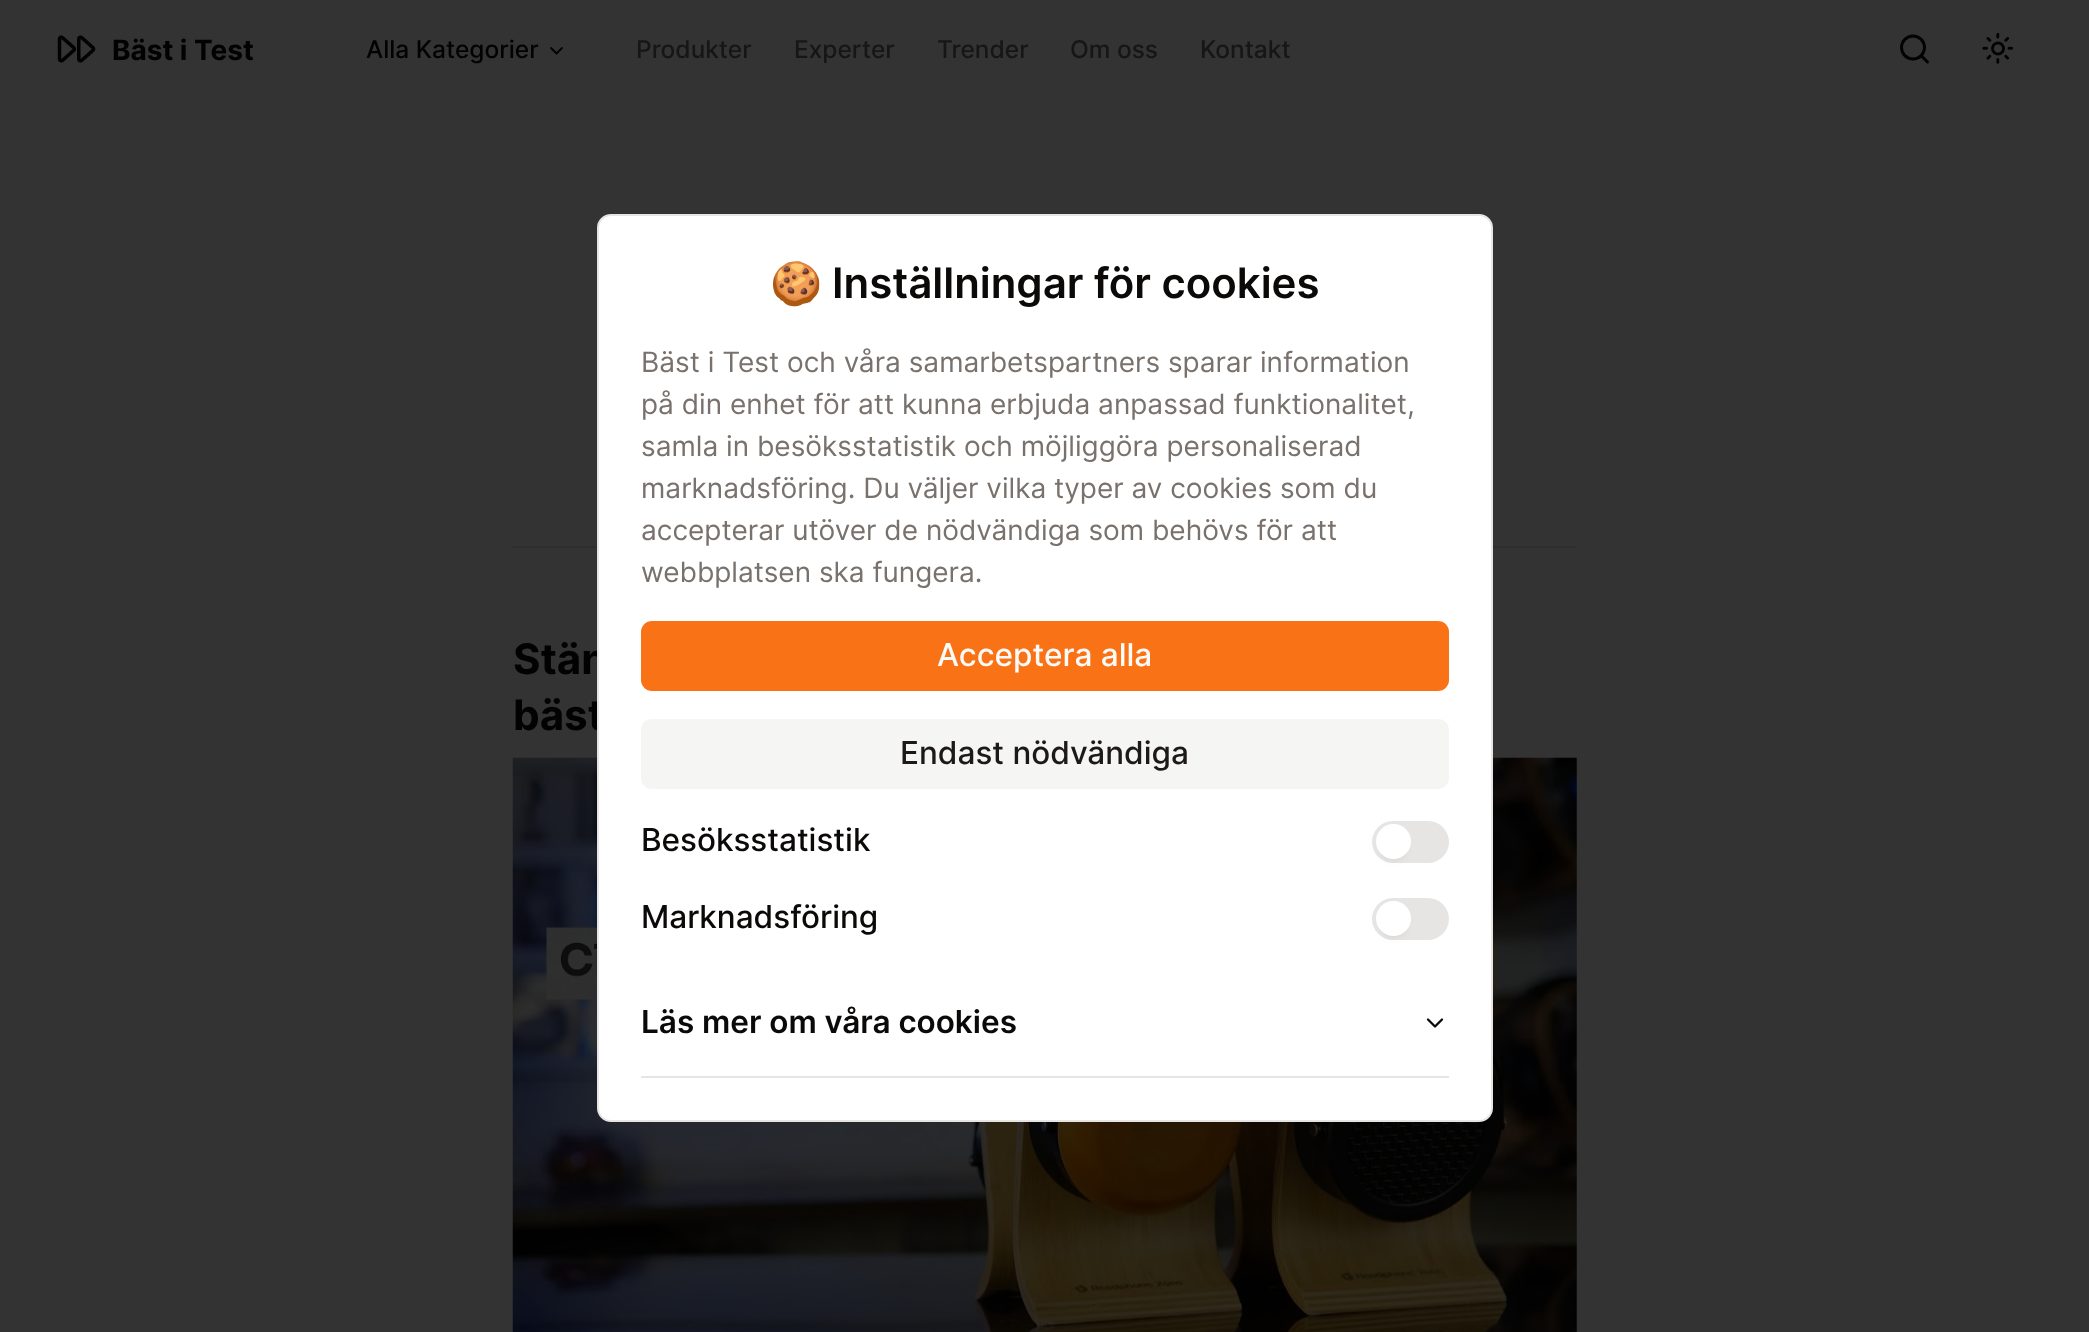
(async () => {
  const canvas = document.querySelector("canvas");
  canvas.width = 2089;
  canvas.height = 1332;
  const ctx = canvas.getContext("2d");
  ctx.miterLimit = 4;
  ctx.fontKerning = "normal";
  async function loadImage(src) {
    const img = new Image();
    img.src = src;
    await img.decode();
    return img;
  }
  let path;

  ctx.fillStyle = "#333333";
  ctx.fillRect(0, 0, 2089, 1332);
  ctx.drawImage(await loadImage("img/1.png"), 57, 35, 39, 28);
  path = new Path2D("M551 48L556.5 53.5L562 48");
  ctx.strokeStyle = "#020202";
  ctx.lineWidth = 1.8;
  ctx.lineCap = "round";
  ctx.lineJoin = "round";
  ctx.stroke(path);
  ctx.beginPath();
  ctx.arc(1913, 47.5, 11.5, 0, Math.PI * 2);
  ctx.lineWidth = 2.9;
  ctx.stroke();
  path = new Path2D("M1927.5 62L1921.5 56");
  ctx.stroke(path);
  ctx.drawImage(await loadImage("img/2.png"), 1982, 32, 32, 32);
  ctx.fillStyle = "#2e2e2e";
  ctx.fillRect(513, 546, 1064, 2);
  ctx.drawImage(await loadImage("img/3.png"), 512, 757, 1065, 575);
  ctx.font = "bold 28px Inter";
  ctx.fillStyle = "#020202";
  ctx.fillText("Bäst i Test", 112, 60);
  ctx.font = "500 24.5px Inter";
  ctx.fillText("Alla Kategorier", 366, 58);
  ctx.fillStyle = "#161615";
  for (const [text, x, y] of [
    ["Produkter", 636, 58],
    ["Experter", 794, 58],
    ["Trender", 937, 58],
    ["Om oss", 1070, 58],
    ["Kontakt", 1200, 58],
  ]) {
    ctx.fillText(text, x, y);
  }
  ctx.font = "bold 42px Inter";
  ctx.fillStyle = "#020202";
  ctx.fillText("Stän", 513, 674);
  ctx.fillText("bäst", 513, 730);
  ctx.fillStyle = "#ffffff";
  ctx.beginPath();
  ctx.roundRect(598, 215, 894, 906, 13);
  ctx.fill();
  ctx.strokeStyle = "#e7e5e4";
  ctx.lineWidth = 2;
  ctx.lineJoin = "miter";
  ctx.stroke();
  ctx.font = "42px Noto Color Emoji";
  ctx.fillStyle = "#0c0a09";
  ctx.fillText("🍪", 770, 298);
  ctx.font = "600 42px Inter";
  ctx.fillText("Inställningar för cookies", 832, 298);
  ctx.font = "28px Inter";
  ctx.fillStyle = "#78716c";
  for (const [text, x, y] of [
    ["Bäst i Test och våra samarbetspartners sparar information", 641, 372],
    ["på din enhet för att kunna erbjuda anpassad funktionalitet,", 641, 414],
    ["samla in besöksstatistik och möjliggöra personaliserad", 641, 456],
    ["marknadsföring. Du väljer vilka typer av cookies som du", 641, 498],
    ["accepterar utöver de nödvändiga som behövs för att", 641, 540],
    ["webbplatsen ska fungera.", 641, 582],
  ]) {
    ctx.fillText(text, x, y);
  }
  ctx.fillStyle = "#f97316";
  ctx.beginPath();
  ctx.roundRect(641, 621, 808, 70, 11);
  ctx.fill();
  ctx.font = "500 31.5px Inter";
  ctx.fillStyle = "#fafaf9";
  ctx.fillText("Acceptera alla", 937, 666);
  ctx.fillStyle = "#f5f5f4";
  ctx.beginPath();
  ctx.roundRect(641, 719, 808, 70, 11);
  ctx.fill();
  ctx.fillStyle = "#1c1917";
  ctx.fillText("Endast nödvändiga", 900, 764);
  ctx.fillStyle = "#0c0a09";
  ctx.fillText("Besöksstatistik", 641, 851);
  ctx.fillStyle = "#e7e5e4";
  ctx.beginPath();
  ctx.roundRect(1372, 821, 77, 42, 21);
  ctx.fill();
  ctx.fillStyle = "rgba(0, 0, 0, 0.1)";
  ctx.filter = "blur(5px)";
  ctx.beginPath();
  ctx.roundRect(1383, 838, 21, 21, 10.5);
  ctx.fill();
  ctx.filter = "none";
  ctx.fillStyle = "#ffffff";
  ctx.beginPath();
  ctx.arc(1393.5, 841.5, 17.5, 0, Math.PI * 2);
  ctx.fill();
  ctx.fillStyle = "#0c0a09";
  ctx.fillText("Marknadsföring", 641, 928);
  ctx.fillStyle = "#e7e5e4";
  ctx.beginPath();
  ctx.roundRect(1372, 898, 77, 42, 21);
  ctx.fill();
  ctx.fillStyle = "rgba(0, 0, 0, 0.1)";
  ctx.filter = "blur(5px)";
  ctx.beginPath();
  ctx.roundRect(1383, 915, 21, 21, 10.5);
  ctx.fill();
  ctx.filter = "none";
  ctx.fillStyle = "#ffffff";
  ctx.beginPath();
  ctx.arc(1393.5, 918.5, 17.5, 0, Math.PI * 2);
  ctx.fill();
  ctx.fillStyle = "#e7e5e4";
  ctx.fillRect(641, 1076, 808, 2);
  ctx.font = "600 31.5px Inter";
  ctx.fillStyle = "#0c0a09";
  ctx.fillText("Läs mer om våra cookies", 641, 1033);
  path = new Path2D("M1428 1019.5L1435 1026.5L1442 1019.5");
  ctx.strokeStyle = "#0c0a09";
  ctx.lineWidth = 2.3;
  ctx.lineJoin = "round";
  ctx.stroke(path);
})();
